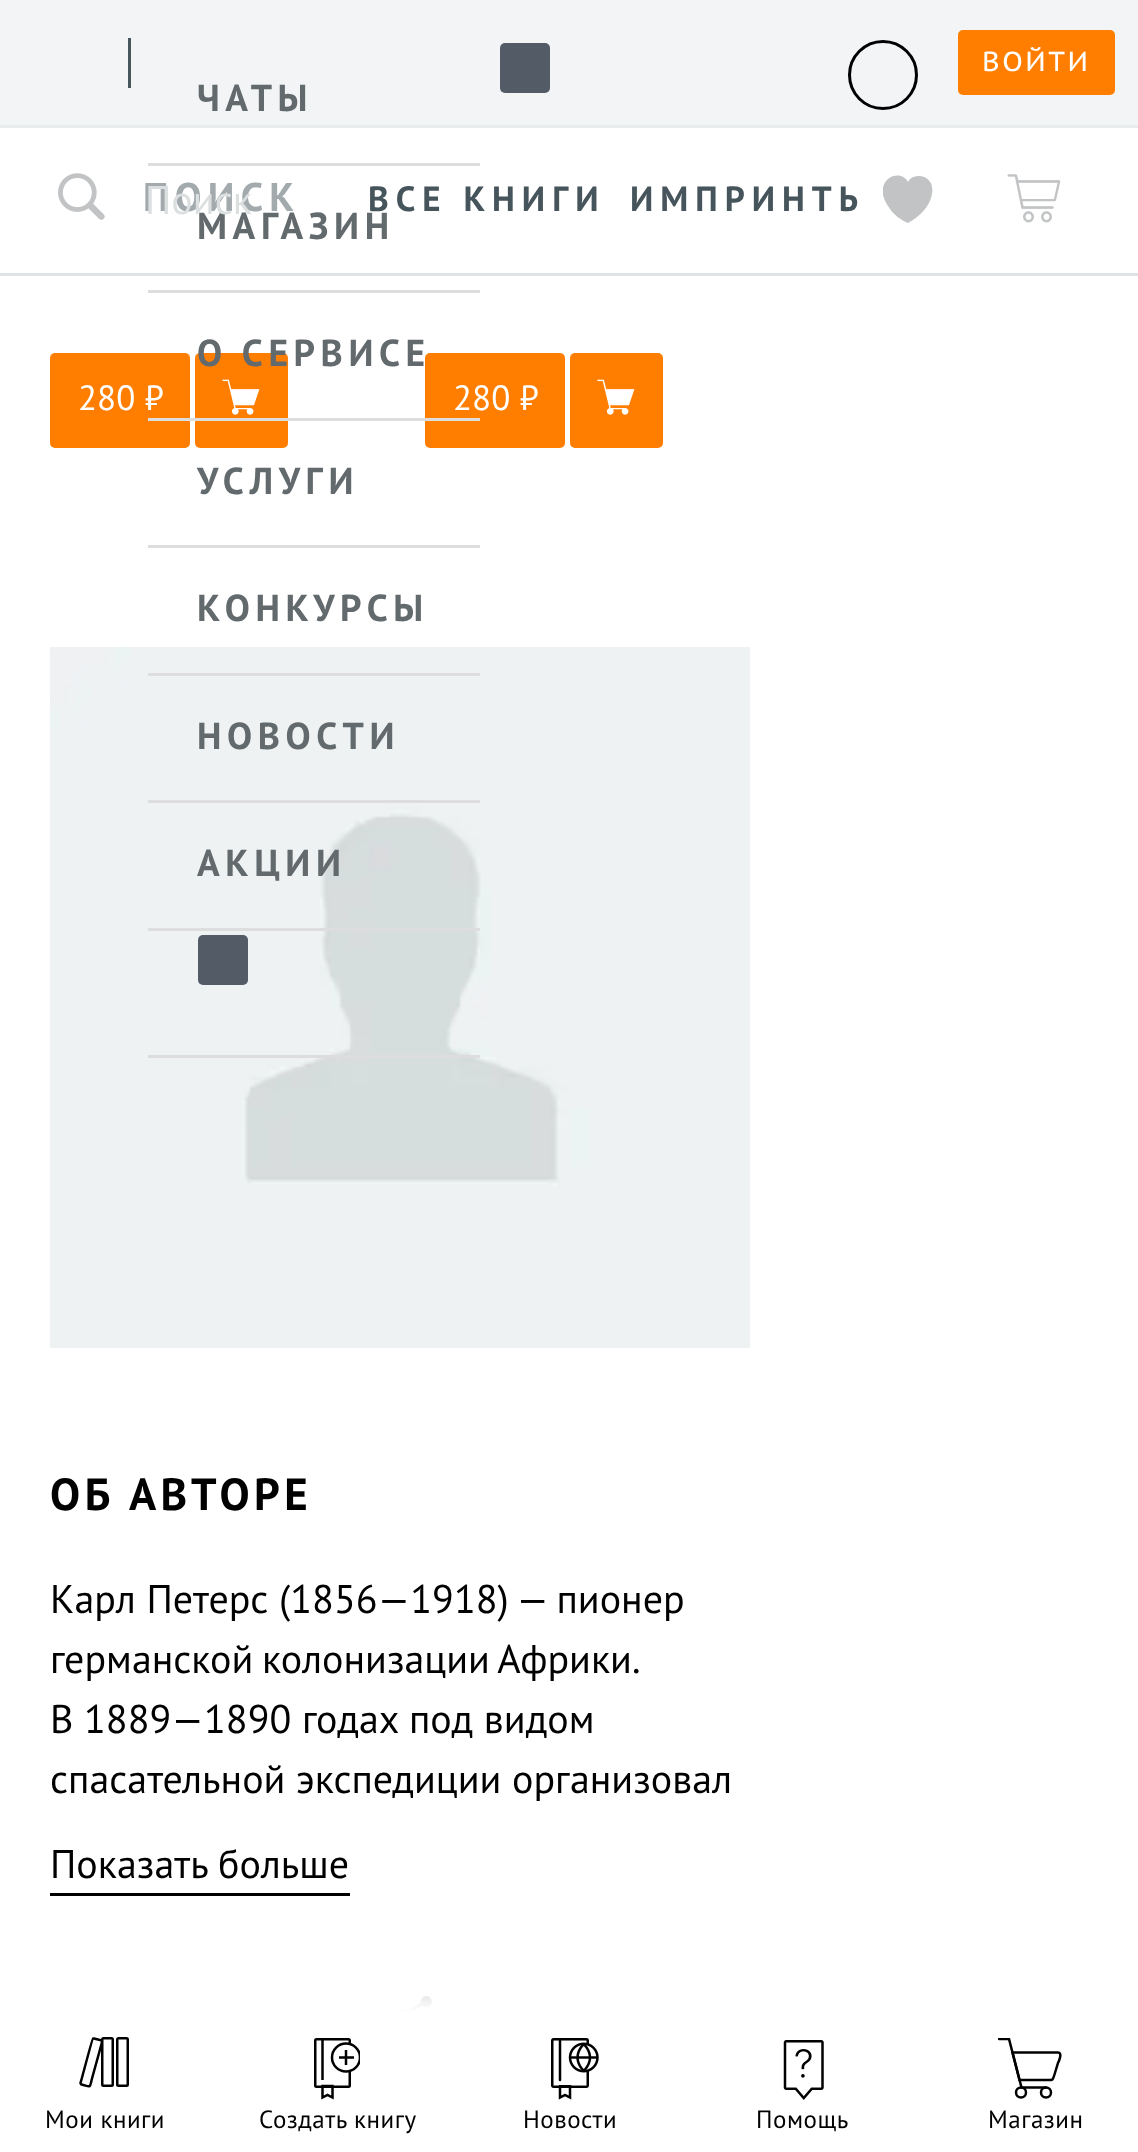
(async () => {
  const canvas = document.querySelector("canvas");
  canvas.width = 1138;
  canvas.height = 2152;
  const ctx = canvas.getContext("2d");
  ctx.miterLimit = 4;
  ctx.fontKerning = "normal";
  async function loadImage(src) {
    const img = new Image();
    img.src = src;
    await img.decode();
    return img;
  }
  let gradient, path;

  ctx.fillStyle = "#ffffff";
  ctx.fillRect(0, 0, 1138, 2152);
  ctx.fillStyle = "#e9eced";
  ctx.fillRect(0, 125, 1138, 3);
  ctx.fillStyle = "#f2f4f5";
  ctx.fillRect(0, 0, 1138, 125);
  ctx.fillStyle = "#ff7e00";
  ctx.beginPath();
  ctx.roundRect(958, 30, 157, 65, 5);
  ctx.fill();
  ctx.fillStyle = "#46545b";
  ctx.fillRect(128, 38, 3, 50);
  ctx.fillStyle = "#535c66";
  ctx.beginPath();
  ctx.roundRect(500, 43, 50, 50, 5);
  ctx.fill();
  ctx.beginPath();
  ctx.arc(883, 75, 33.5, 0, Math.PI * 2);
  ctx.strokeStyle = "#000000";
  ctx.lineWidth = 3;
  ctx.stroke();
  ctx.fillStyle = "#dddddd";
  ctx.fillRect(148, 163, 332, 3);
  ctx.fillRect(148, 290, 332, 3);
  ctx.fillStyle = "#ff7e00";
  ctx.beginPath();
  ctx.roundRect(50, 353, 140, 95, 5);
  ctx.fill();
  ctx.beginPath();
  ctx.roundRect(195, 353, 93, 95, 5);
  ctx.fill();
  ctx.beginPath();
  ctx.roundRect(425, 353, 140, 95, 5);
  ctx.fill();
  for (const [x, y, w, h, color] of [
    [148, 418, 332, 3, "#dddddd"],
    [148, 545, 332, 3, "#dddddd"],
    [50, 648, 700, 700, "#eef2f3"],
  ]) {
    ctx.fillStyle = color;
    ctx.fillRect(x, y, w, h);
  }
  ctx.drawImage(await loadImage("img/4.png"), 50, 647, 700, 539);
  for (const [x, y, w, h, color] of [
    [148, 673, 332, 3, "#dddddd"],
    [148, 800, 332, 3, "#dddddd"],
    [148, 928, 332, 3, "#dddddd"],
    [148, 1055, 332, 3, "#dddddd"],
  ]) {
    ctx.fillStyle = color;
    ctx.fillRect(x, y, w, h);
  }
  ctx.fillStyle = "#535c66";
  ctx.beginPath();
  ctx.roundRect(198, 935, 50, 50, 5);
  ctx.fill();
  ctx.fillStyle = "#dfe3e5";
  ctx.fillRect(0, 273, 1138, 3);
  ctx.drawImage(await loadImage("img/1.png"), 58, 173, 47, 47);
  ctx.save();
  ctx.beginPath();
  ctx.rect(883, 170, 50, 60);
  ctx.clip();
  ctx.fillStyle = "#c1c3c4";
  path = new Path2D("M919 176C914 176 910 178 908 182C899 166 869 182 890 209C894 215 901 220 908 223C908 223 926 214 931 198C936 182 926 176 919 176Z");
  ctx.fill(path);
  ctx.restore();
  ctx.drawImage(await loadImage("img/2.png"), 1007, 174, 54, 49);
  ctx.drawImage(await loadImage("img/3.png"), 222, 379, 38, 36);
  ctx.fillStyle = "#ff7e00";
  ctx.beginPath();
  ctx.roundRect(570, 353, 93, 95, 5);
  ctx.fill();
  ctx.drawImage(await loadImage("img/3.png"), 597, 379, 38, 36);
  ctx.fillStyle = "#000000";
  ctx.fillRect(50, 1893, 300, 3);
  ctx.drawImage(await loadImage("img/5.png"), 399, 1996, 33, 16);
  gradient = ctx.createLinearGradient(570, 1970, 570, 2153);
  gradient.addColorStop(0.02, "rgba(255, 255, 255, 0)");
  gradient.addColorStop(0.23, "#ffffff");
  ctx.fillStyle = gradient;
  ctx.fillRect(399, 1996, 33, 16);
  ctx.beginPath();
  ctx.roundRect(102.25, 2038.25, 10.5, 47.5, 1.25);
  ctx.lineWidth = 2.5;
  ctx.stroke();
  path = new Path2D("M94 2038.5C103.5 2041 103 2038.5 100 2049.5L92 2078.5C89.5 2088.5 91.5 2087 81.5 2084.5C81 2084.5 80.5 2083.5 80.5 2083C82 2078.5 92 2039 93 2038.5Z");
  ctx.lineCap = "round";
  ctx.lineJoin = "round";
  ctx.stroke(path);
  ctx.beginPath();
  ctx.roundRect(117.25, 2038.25, 10.5, 47.5, 1.25);
  ctx.lineJoin = "miter";
  ctx.stroke();
  ctx.beginPath();
  ctx.roundRect(315.25, 2039.25, 34.5, 47.5, 1.25);
  ctx.stroke();
  path = new Path2D("M322.5 2039V2080M322.5 2097.5V2086H332.5V2097.5L327.5 2095Z");
  ctx.lineCap = "butt";
  ctx.stroke(path);
  ctx.fillStyle = "#ffffff";
  ctx.beginPath();
  ctx.arc(346, 2057.5, 14, 0, Math.PI * 2);
  ctx.fill();
  ctx.save();
  ctx.beginPath();
  ctx.rect(313, 2038, 47, 62);
  ctx.clip();
  ctx.beginPath();
  ctx.arc(346, 2057.5, 14, 0, Math.PI * 2);
  ctx.stroke();
  ctx.restore();
  path = new Path2D("M346 2050V2065M339 2057.5H354");
  ctx.stroke(path);
  ctx.drawImage(await loadImage("img/6.png"), 551, 2038, 48, 62);
  ctx.drawImage(await loadImage("img/7.png"), 783, 2040, 41, 60);
  ctx.save();
  ctx.beginPath();
  ctx.rect(998, 2038, 65, 62);
  ctx.clip();
  path = new Path2D("M999 2039H1009L1021.5 2087.5H1046");
  ctx.lineCap = "round";
  ctx.stroke(path);
  ctx.restore();
  path = new Path2D("M1058 2052.5H1012.5L1019.5 2080H1046C1053 2080 1052.5 2081 1054.5 2074.5L1058 2063C1058.5 2062 1063 2052.5 1058 2052.5Z");
  ctx.stroke(path);
  ctx.beginPath();
  ctx.arc(1021, 2092.5, 5, 0, Math.PI * 2);
  ctx.stroke();
  ctx.beginPath();
  ctx.arc(1046, 2092.5, 5, 0, Math.PI * 2);
  ctx.stroke();
  ctx.letterSpacing = "2.5px";
  ctx.font = "27.5px PT Sans Caption";
  ctx.fillText("ВОЙТИ", 982, 71);
  ctx.letterSpacing = "5.6px";
  ctx.font = "bold 37.5px PT Sans";
  ctx.fillStyle = "#636a6d";
  for (const [text, x, y] of [
    ["ЧАТЫ", 197, 111],
    ["МАГАЗИН", 197, 239],
    ["О СЕРВИСЕ", 197, 366],
    ["УСЛУГИ", 197, 494],
    ["КОНКУРСЫ", 197, 621],
    ["НОВОСТИ", 197, 749],
    ["АКЦИИ", 197, 876],
  ]) {
    ctx.fillText(text, x, y);
  }
  ctx.letterSpacing = "6.25px";
  ctx.font = "bold 40px PT Sans";
  ctx.fillStyle = "#a3aaad";
  ctx.fillText("ПОИСК", 143, 211);
  ctx.letterSpacing = "0px";
  ctx.font = "40px PT Sans";
  ctx.fillStyle = "#dcdfe0";
  ctx.fillText("Поиск", 145, 214);
  ctx.letterSpacing = "7px";
  ctx.font = "bold 35px PT Sans";
  ctx.fillStyle = "#46545b";
  ctx.fillText("ВСЕ КНИГИ", 368, 211);
  ctx.save();
  ctx.beginPath();
  ctx.rect(355, 178, 503, 45);
  ctx.clip();
  ctx.fillText("ИМПРИНТЫ", 630, 211);
  ctx.restore();
  ctx.letterSpacing = "0px";
  ctx.font = "35px PT Sans";
  ctx.fillStyle = "#ffffff";
  ctx.fillText("280 ₽", 78, 410);
  ctx.fillText("280 ₽", 453, 410);
  ctx.letterSpacing = "4.5px";
  ctx.font = "bold 45px PT Sans";
  ctx.fillStyle = "#000000";
  ctx.fillText("ОБ АВТОРЕ", 50, 1510);
  ctx.letterSpacing = "0px";
  ctx.font = "40px PT Sans";
  ctx.fillText("Карл Петерс (1856—1918) — пионер", 50, 1613);
  ctx.wordSpacing = "-2px";
  ctx.fillText("германской колонизации Африки.", 50, 1673);
  ctx.wordSpacing = "0px";
  for (const [text, x, y] of [
    ["В 1889—1890 годах под видом", 50, 1733],
    ["спасательной экспедиции организовал", 50, 1793],
    ["Показать больше", 50, 1878],
  ]) {
    ctx.fillText(text, x, y);
  }
  ctx.letterSpacing = "0.5px";
  ctx.font = "25px PT Sans";
  for (const [text, x, y] of [
    ["Мои книги", 45, 2128],
    ["Создать книгу", 259, 2128],
    ["Новости", 523, 2128],
    ["Помощь", 756, 2128],
    ["Магазин", 988, 2128],
  ]) {
    ctx.fillText(text, x, y);
  }
})();
